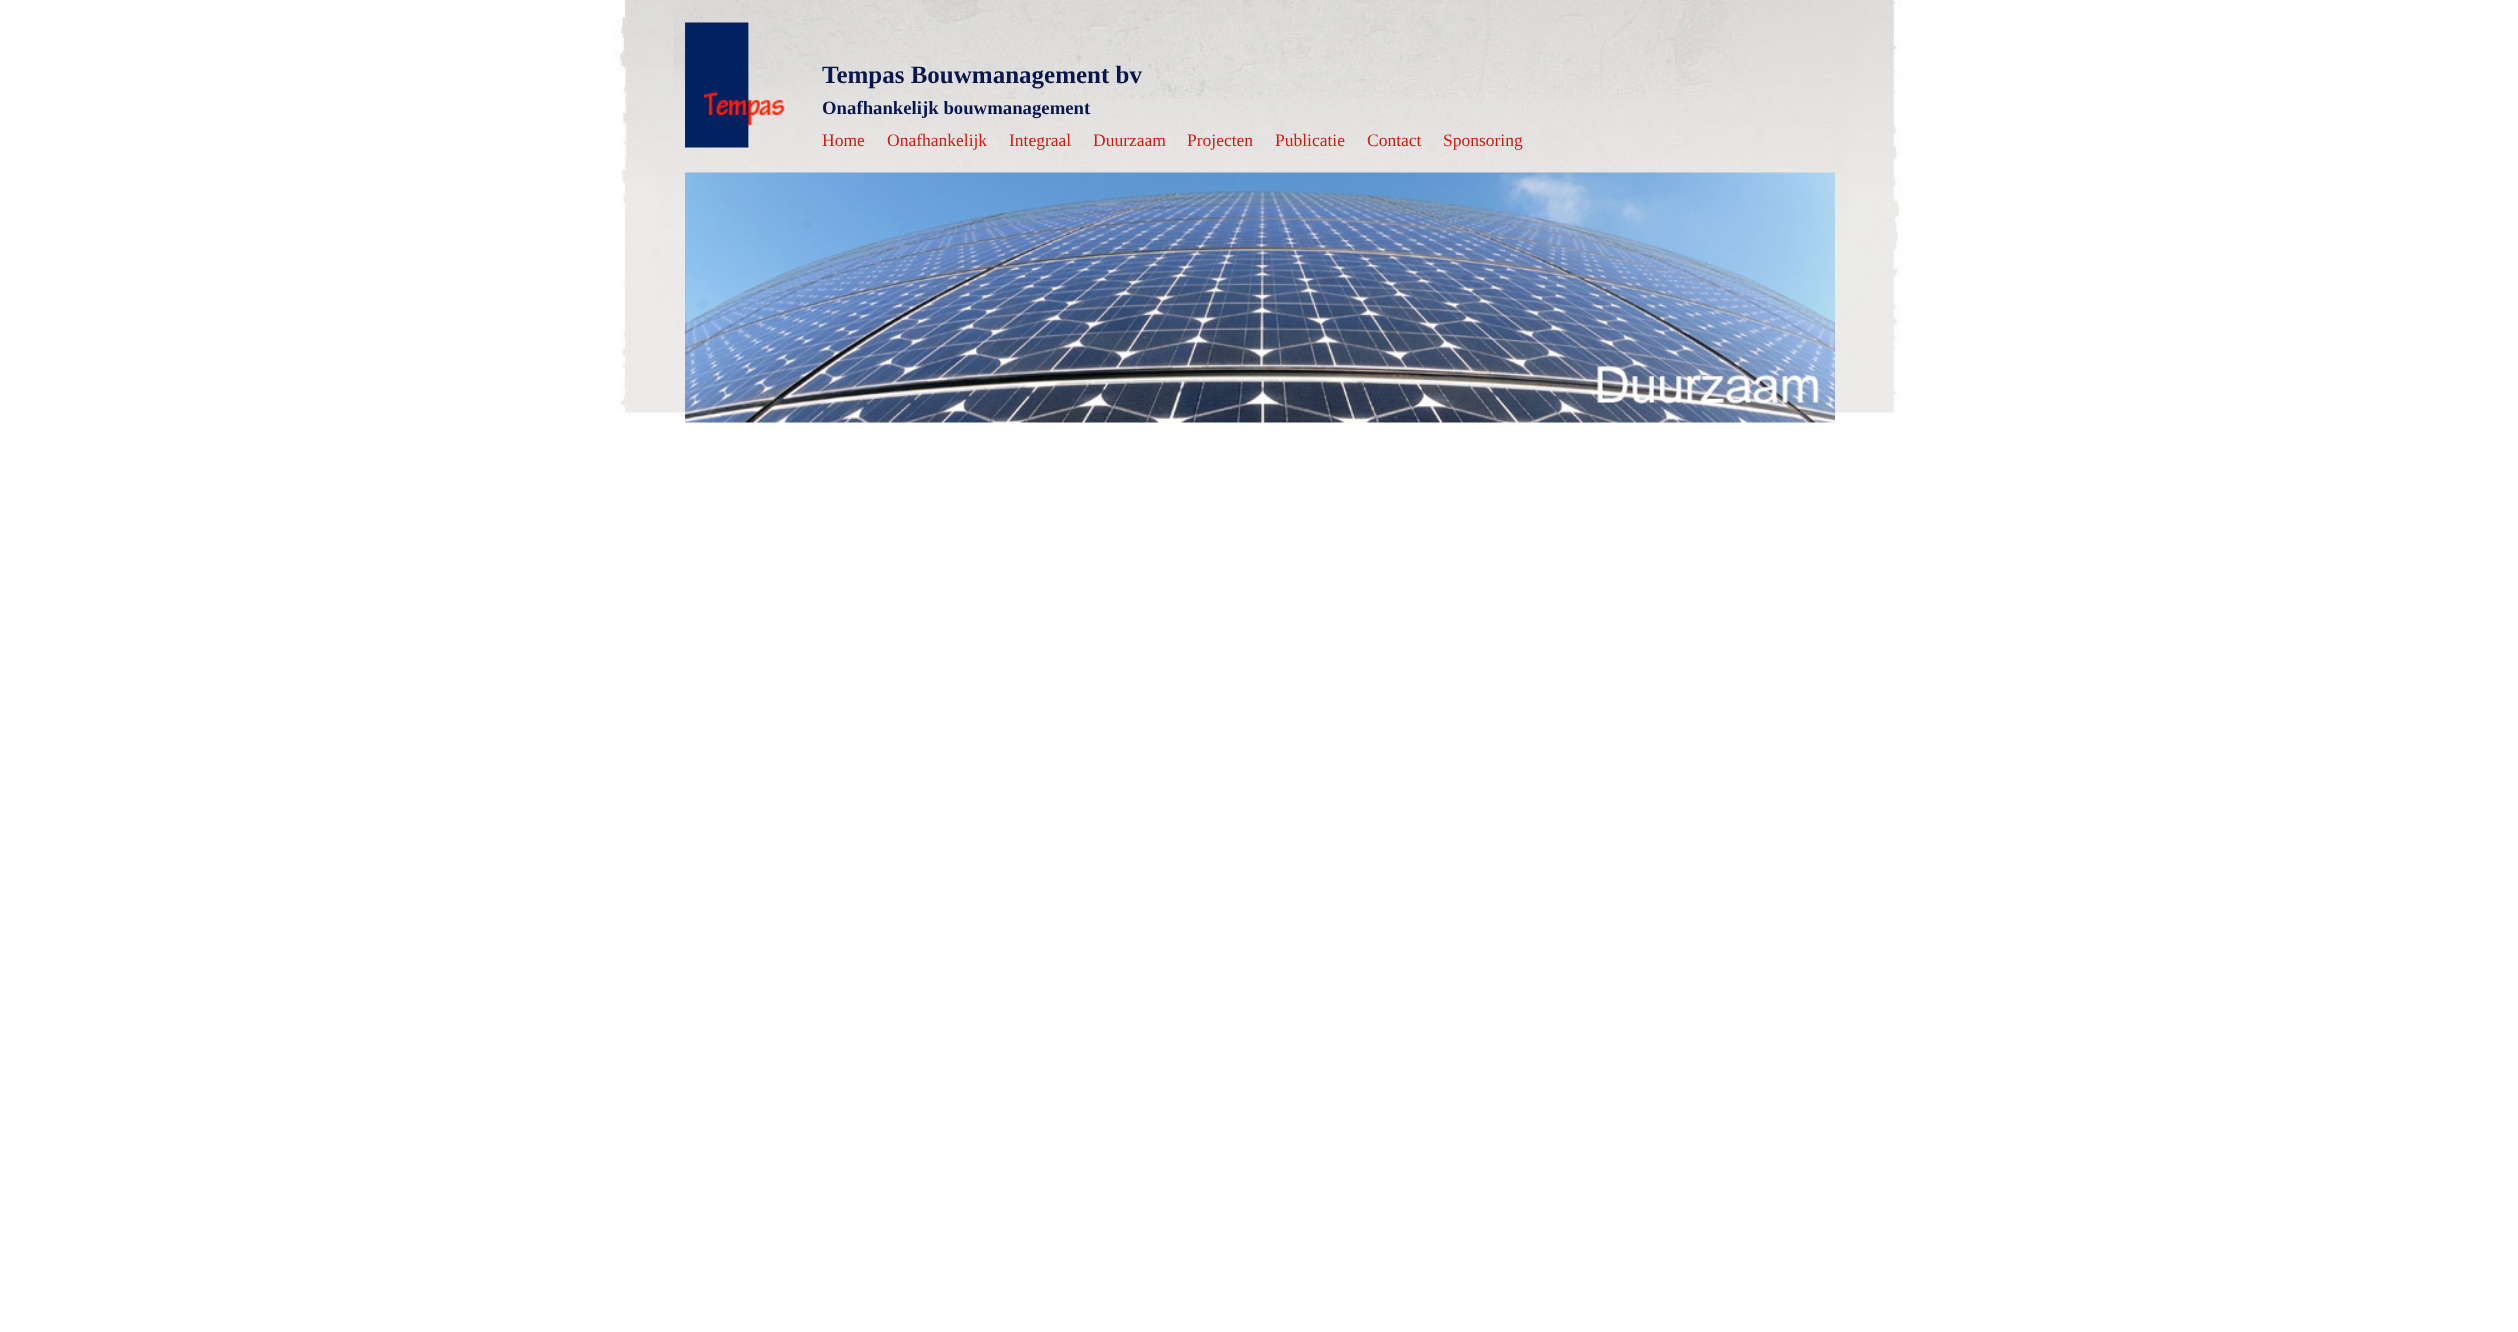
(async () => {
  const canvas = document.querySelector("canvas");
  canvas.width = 2518;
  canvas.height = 1332;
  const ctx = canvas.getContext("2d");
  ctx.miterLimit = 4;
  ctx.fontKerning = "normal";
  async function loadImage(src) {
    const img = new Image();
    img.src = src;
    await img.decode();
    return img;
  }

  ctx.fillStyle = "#ffffff";
  ctx.fillRect(0, 0, 2518, 1332);
  ctx.drawImage(await loadImage("img/1.png"), 614, 0, 1288, 413);
  ctx.drawImage(await loadImage("img/2.png"), 685, 22, 100, 126);
  ctx.drawImage(await loadImage("img/3.png"), 685, 172, 1150, 251);
  ctx.font = "bold 25px Liberation Serif";
  ctx.fillStyle = "#09164d";
  ctx.fillText("Tempas Bouwmanagement bv", 822, 83);
  ctx.font = "bold 18.75px Liberation Serif";
  ctx.fillText("Onafhankelijk bouwmanagement", 822, 114);
  ctx.font = "17.5px Liberation Serif";
  ctx.fillStyle = "#d21913";
  for (const [text, x, y] of [
    ["Home", 822, 146],
    ["Onafhankelijk", 887, 146],
    ["Integraal", 1009, 146],
    ["Duurzaam", 1093, 146],
    ["Projecten", 1187, 146],
    ["Publicatie", 1275, 146],
    ["Contact", 1367, 146],
    ["Sponsoring", 1443, 146],
  ]) {
    ctx.fillText(text, x, y);
  }
})();
